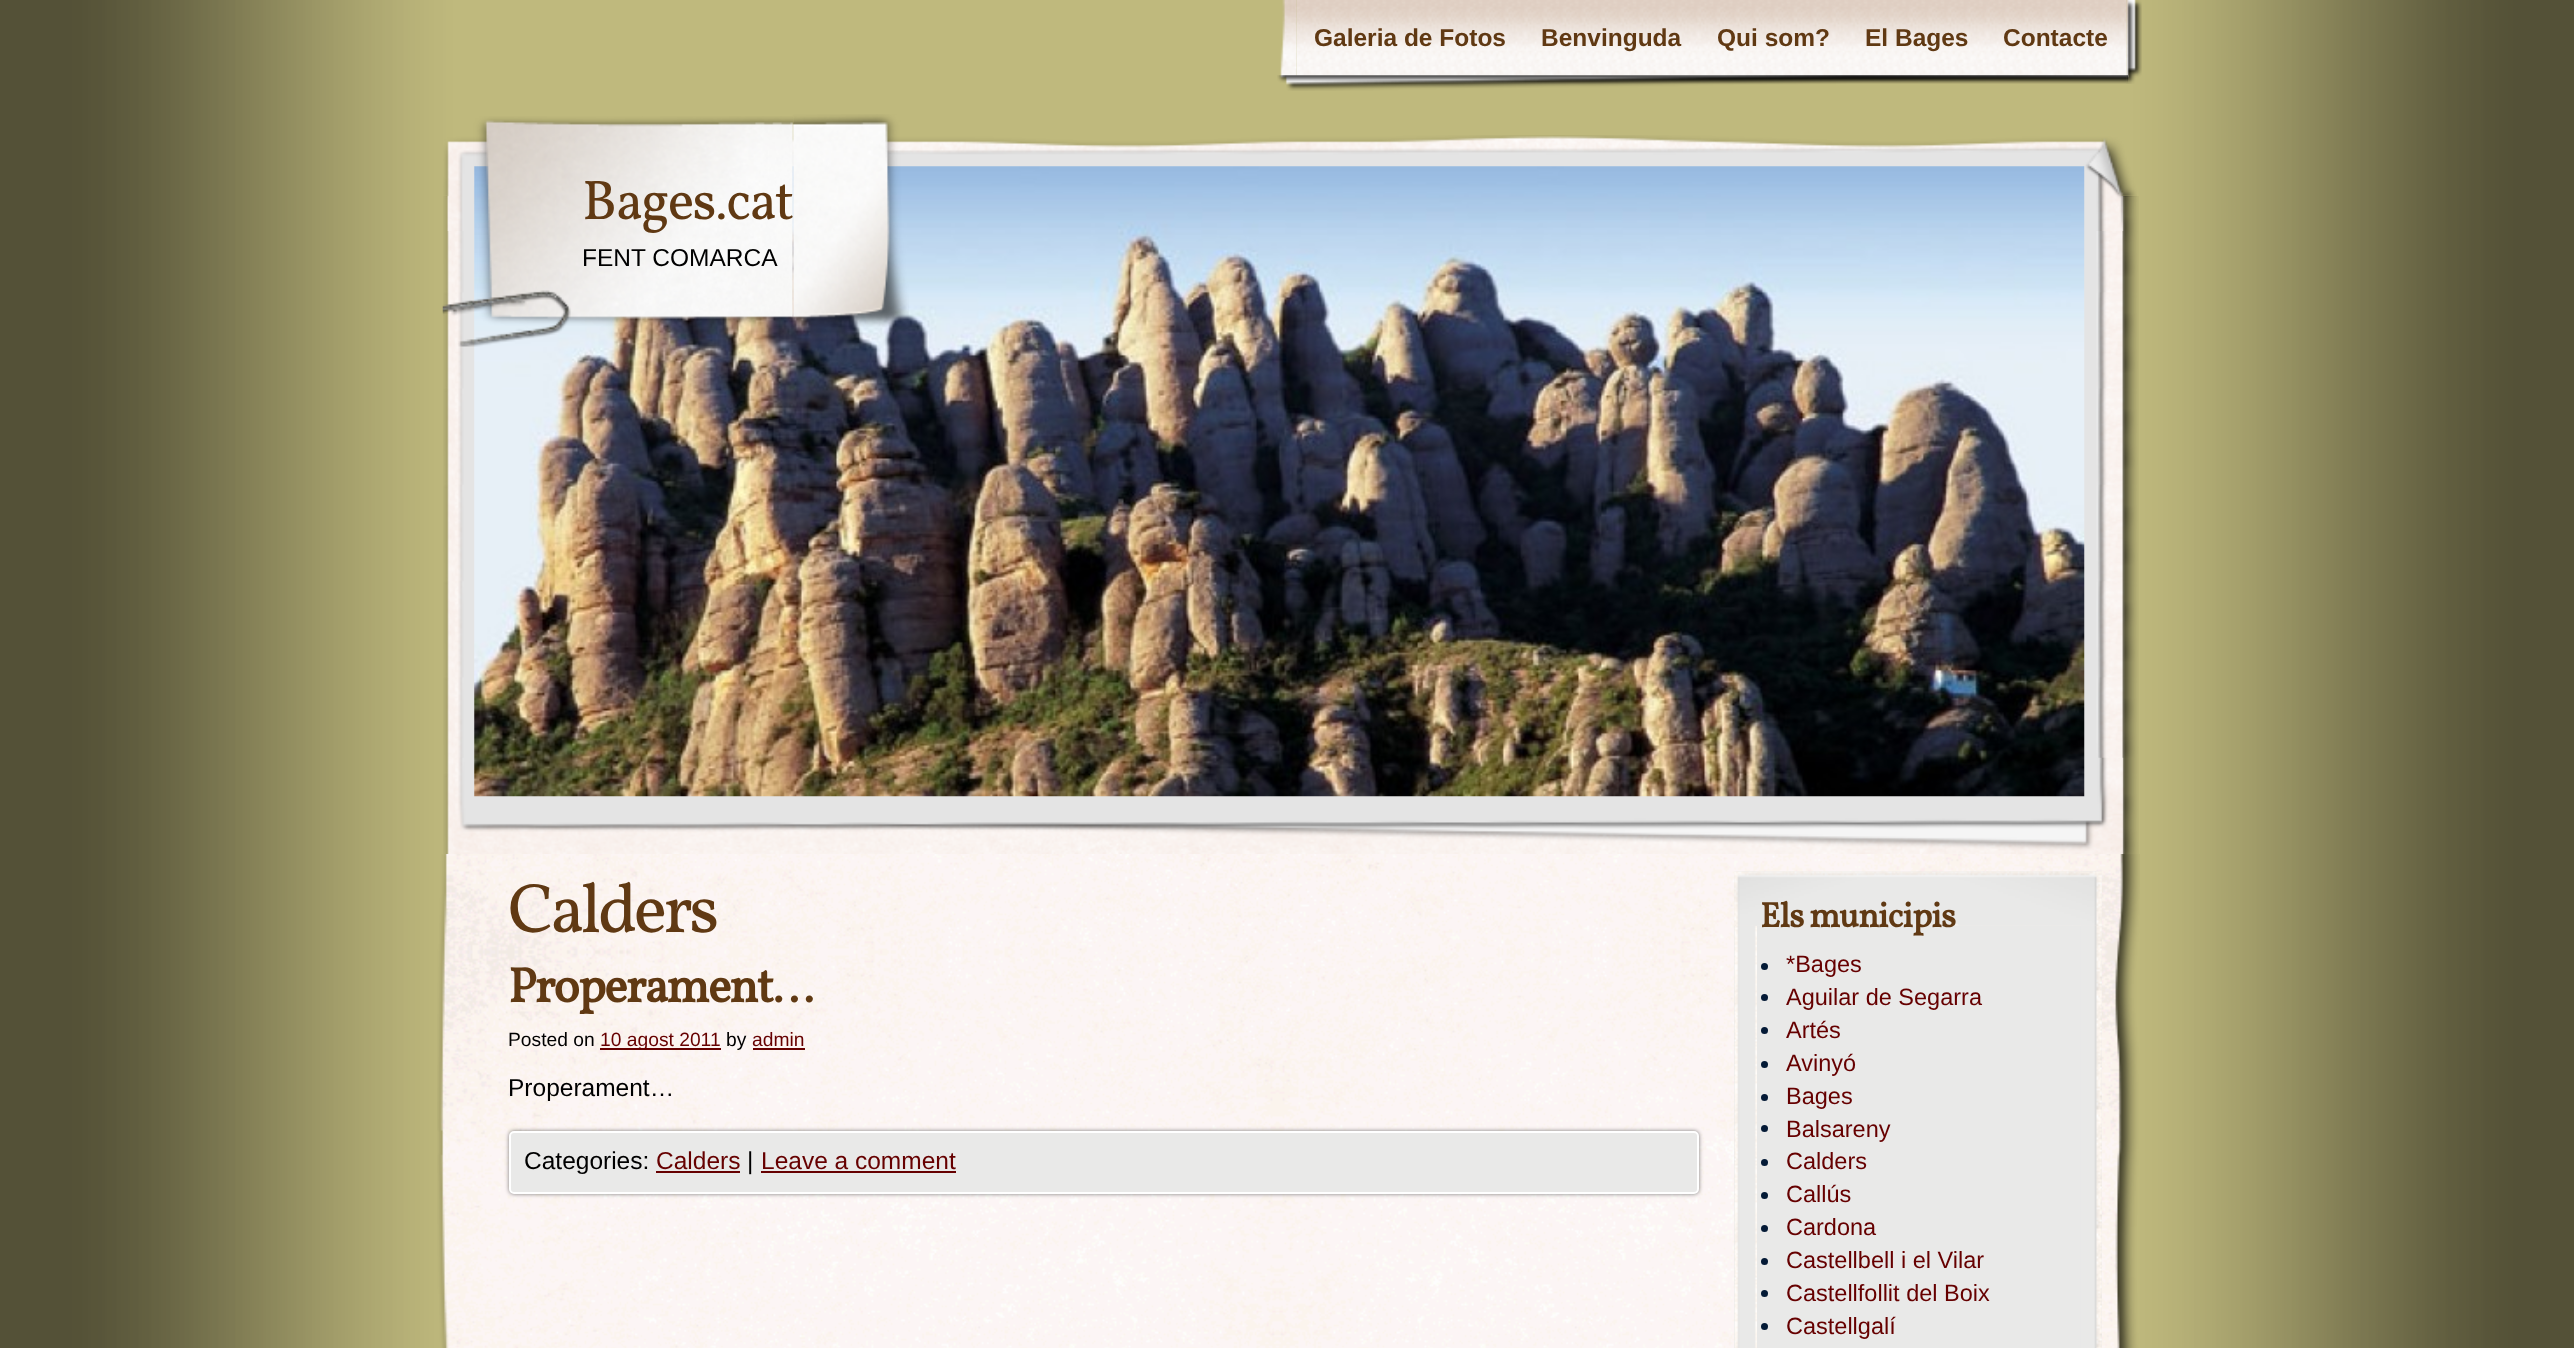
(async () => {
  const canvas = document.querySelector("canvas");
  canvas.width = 2574;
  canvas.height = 1348;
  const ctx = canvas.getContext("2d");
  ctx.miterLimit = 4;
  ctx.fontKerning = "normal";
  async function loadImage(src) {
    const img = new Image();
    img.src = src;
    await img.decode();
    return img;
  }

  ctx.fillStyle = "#bfb97d";
  ctx.fillRect(0, 0, 2574, 1348);
  ctx.drawImage(await loadImage("img/1.png"), 0, 0, 2574, 1348);
  ctx.drawImage(await loadImage("img/2.png"), 1280, 0, 17, 78);
  ctx.drawImage(await loadImage("img/3.png"), 2126, 0, 16, 84);
  ctx.drawImage(await loadImage("img/4.png"), 1296, 0, 831, 84);
  ctx.drawImage(await loadImage("img/5.png"), 1277, 75, 851, 16);
  ctx.drawImage(await loadImage("img/6.png"), 443, 196, 1696, 658);
  ctx.drawImage(await loadImage("img/7.png"), 443, 135, 1694, 96);
  ctx.drawImage(await loadImage("img/8.png"), 453, 757, 1671, 97);
  ctx.drawImage(await loadImage("img/9.png"), 474, 166, 1611, 631);
  ctx.drawImage(await loadImage("img/10.png"), 792, 114, 117, 213);
  ctx.drawImage(await loadImage("img/11.png"), 442, 116, 351, 231);
  ctx.drawImage(await loadImage("img/12.png"), 437, 854, 1703, 494);
  ctx.fillStyle = "#660000";
  ctx.fillRect(600, 1048, 121, 2);
  ctx.fillRect(753, 1048, 52, 2);
  ctx.fillStyle = "rgba(0, 0, 0, 0.5)";
  ctx.filter = "blur(2px)";
  ctx.beginPath();
  ctx.roundRect(509, 1131, 1190, 63, 5);
  ctx.fill();
  ctx.filter = "none";
  ctx.fillStyle = "#e9e9e8";
  ctx.beginPath();
  ctx.roundRect(510, 1132, 1188, 61, 4);
  ctx.fill();
  ctx.strokeStyle = "#ffffff";
  ctx.lineWidth = 2;
  ctx.stroke();
  for (const [x, y, w, h, color] of [
    [656, 1171, 84, 2, "#660000"],
    [761, 1171, 195, 2, "#660000"],
    [1734, 872, 368, 476, "#e9e9e8"],
  ]) {
    ctx.fillStyle = color;
    ctx.fillRect(x, y, w, h);
  }
  ctx.drawImage(await loadImage("img/13.png"), 1734, 871, 368, 477);
  ctx.fillStyle = "#041a36";
  ctx.beginPath();
  ctx.arc(1764.5, 966.5, 3.5, 0, Math.PI * 2);
  ctx.fill();
  ctx.beginPath();
  ctx.arc(1764.5, 997.5, 3.5, 0, Math.PI * 2);
  ctx.fill();
  ctx.beginPath();
  ctx.arc(1764.5, 1030.5, 3.5, 0, Math.PI * 2);
  ctx.fill();
  ctx.beginPath();
  ctx.arc(1764.5, 1064.5, 3.5, 0, Math.PI * 2);
  ctx.fill();
  ctx.beginPath();
  ctx.arc(1764.5, 1097.5, 3.5, 0, Math.PI * 2);
  ctx.fill();
  ctx.beginPath();
  ctx.arc(1764.5, 1128.5, 3.5, 0, Math.PI * 2);
  ctx.fill();
  ctx.beginPath();
  ctx.arc(1764.5, 1162.5, 3.5, 0, Math.PI * 2);
  ctx.fill();
  ctx.beginPath();
  ctx.arc(1764.5, 1195.5, 3.5, 0, Math.PI * 2);
  ctx.fill();
  ctx.beginPath();
  ctx.arc(1764.5, 1228.5, 3.5, 0, Math.PI * 2);
  ctx.fill();
  ctx.beginPath();
  ctx.arc(1764.5, 1261.5, 3.5, 0, Math.PI * 2);
  ctx.fill();
  ctx.beginPath();
  ctx.arc(1764.5, 1293.5, 3.5, 0, Math.PI * 2);
  ctx.fill();
  ctx.beginPath();
  ctx.arc(1764.5, 1326.5, 3.5, 0, Math.PI * 2);
  ctx.fill();
  ctx.font = "bold 24.5px Liberation Sans";
  ctx.fillStyle = "#603913";
  for (const [text, x, y] of [
    ["Galeria de Fotos", 1314, 46],
    ["Benvinguda", 1541, 46],
    ["Qui som?", 1717, 46],
    ["El Bages", 1865, 46],
    ["Contacte", 2003, 46],
  ]) {
    ctx.fillText(text, x, y);
  }
  ctx.letterSpacing = "-1.75px";
  ctx.font = "56px Vollkorn";
  ctx.fillText("Bages.cat", 582, 219);
  ctx.letterSpacing = "0px";
  ctx.font = "24.5px Liberation Sans";
  ctx.fillStyle = "#000000";
  ctx.fillText("FENT COMARCA", 582, 266);
  ctx.letterSpacing = "-3.5px";
  ctx.font = "70px Vollkorn";
  ctx.fillStyle = "#603913";
  ctx.fillText("Calders", 508, 932);
  ctx.letterSpacing = "-1.75px";
  ctx.font = "bold 49px Vollkorn";
  ctx.fillText("Properament…", 508, 1002);
  ctx.letterSpacing = "0px";
  ctx.font = "19.25px Liberation Sans";
  ctx.fillStyle = "#000000";
  ctx.fillText("Posted on", 508, 1046);
  ctx.fillStyle = "#660000";
  ctx.fillText("10 agost 2011", 600, 1046);
  ctx.fillStyle = "#000000";
  ctx.fillText("by", 726, 1046);
  ctx.fillStyle = "#660000";
  ctx.fillText("admin", 752, 1046);
  ctx.font = "24.5px Liberation Sans";
  ctx.fillStyle = "#000000";
  ctx.fillText("Properament…", 508, 1096);
  ctx.fillText("Categories:", 524, 1169);
  ctx.fillStyle = "#660000";
  ctx.fillText("Calders", 656, 1169);
  ctx.fillStyle = "#000000";
  ctx.fillText("|", 747, 1169);
  ctx.fillStyle = "#660000";
  ctx.fillText("Leave a comment", 761, 1169);
  ctx.letterSpacing = "-0.9px";
  ctx.font = "bold 35px Vollkorn";
  ctx.fillStyle = "#603913";
  ctx.fillText("Els municipis", 1760, 927);
  ctx.letterSpacing = "0px";
  ctx.font = "23.5px Liberation Sans";
  ctx.fillStyle = "#660000";
  for (const [text, x, y] of [
    ["*Bages", 1786, 972],
    ["Aguilar de Segarra", 1786, 1005],
    ["Artés", 1786, 1038],
    ["Avinyó", 1786, 1071],
    ["Bages", 1786, 1104],
    ["Balsareny", 1786, 1137],
    ["Calders", 1786, 1169],
    ["Callús", 1786, 1202],
    ["Cardona", 1786, 1235],
    ["Castellbell i el Vilar", 1786, 1268],
    ["Castellfollit del Boix", 1786, 1301],
    ["Castellgalí", 1786, 1334],
  ]) {
    ctx.fillText(text, x, y);
  }
})();
